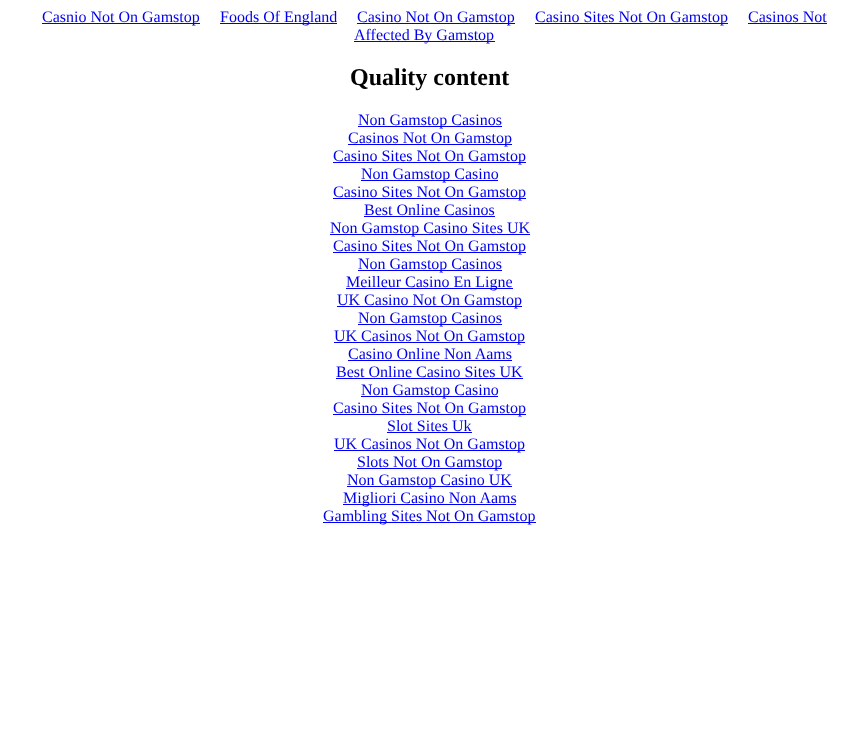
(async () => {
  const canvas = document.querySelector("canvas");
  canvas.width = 859;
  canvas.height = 744;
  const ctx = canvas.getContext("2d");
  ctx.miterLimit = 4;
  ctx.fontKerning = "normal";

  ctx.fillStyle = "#ffffff";
  ctx.fillRect(0, 0, 859, 744);
  for (const [x, y, w, h, color] of [
    [42, 23, 158, 1, "#0000ee"],
    [220, 23, 117, 1, "#0000ee"],
    [357, 23, 158, 1, "#0000ee"],
    [535, 23, 193, 1, "#0000ee"],
    [748, 23, 79, 1, "#0000ee"],
    [354, 41, 141, 1, "#0000ee"],
    [358, 126, 144, 1, "#0000ee"],
    [348, 144, 164, 1, "#0000ee"],
    [333, 162, 193, 1, "#0000ee"],
    [361, 180, 137, 1, "#0000ee"],
    [333, 198, 193, 1, "#0000ee"],
    [364, 216, 131, 1, "#0000ee"],
    [330, 234, 200, 1, "#0000ee"],
    [333, 252, 193, 1, "#0000ee"],
    [358, 270, 144, 1, "#0000ee"],
    [346, 288, 167, 1, "#0000ee"],
    [337, 306, 185, 1, "#0000ee"],
    [358, 324, 144, 1, "#0000ee"],
    [334, 342, 191, 1, "#0000ee"],
    [348, 360, 164, 1, "#0000ee"],
    [336, 378, 187, 1, "#0000ee"],
    [361, 396, 137, 1, "#0000ee"],
    [333, 414, 193, 1, "#0000ee"],
    [387, 432, 85, 1, "#0000ee"],
    [334, 450, 191, 1, "#0000ee"],
    [357, 468, 145, 1, "#0000ee"],
    [347, 486, 165, 1, "#0000ee"],
    [343, 504, 173, 1, "#0000ee"],
    [323, 522, 213, 1, "#0000ee"],
  ]) {
    ctx.fillStyle = color;
    ctx.fillRect(x, y, w, h);
  }
  ctx.font = "16px Liberation Serif";
  for (const [text, x, y] of [
    ["Casnio Not On Gamstop", 42, 22],
    ["Foods Of England", 220, 22],
    ["Casino Not On Gamstop", 357, 22],
    ["Casino Sites Not On Gamstop", 535, 22],
    ["Casinos Not", 748, 22],
    ["Affected By Gamstop", 354, 40],
  ]) {
    ctx.fillText(text, x, y);
  }
  ctx.font = "bold 24px Liberation Serif";
  ctx.fillStyle = "#000000";
  ctx.fillText("Quality content", 350, 85);
  ctx.font = "16px Liberation Serif";
  ctx.fillStyle = "#0000ee";
  for (const [text, x, y] of [
    ["Non Gamstop Casinos", 358, 125],
    ["Casinos Not On Gamstop", 348, 143],
    ["Casino Sites Not On Gamstop", 333, 161],
    ["Non Gamstop Casino", 361, 179],
    ["Casino Sites Not On Gamstop", 333, 197],
    ["Best Online Casinos", 364, 215],
    ["Non Gamstop Casino Sites UK", 330, 233],
    ["Casino Sites Not On Gamstop", 333, 251],
    ["Non Gamstop Casinos", 358, 269],
    ["Meilleur Casino En Ligne", 346, 287],
    ["UK Casino Not On Gamstop", 337, 305],
    ["Non Gamstop Casinos", 358, 323],
    ["UK Casinos Not On Gamstop", 334, 341],
    ["Casino Online Non Aams", 348, 359],
    ["Best Online Casino Sites UK", 336, 377],
    ["Non Gamstop Casino", 361, 395],
    ["Casino Sites Not On Gamstop", 333, 413],
    ["Slot Sites Uk", 387, 431],
    ["UK Casinos Not On Gamstop", 334, 449],
    ["Slots Not On Gamstop", 357, 467],
    ["Non Gamstop Casino UK", 347, 485],
    ["Migliori Casino Non Aams", 343, 503],
    ["Gambling Sites Not On Gamstop", 323, 521],
  ]) {
    ctx.fillText(text, x, y);
  }
})();
